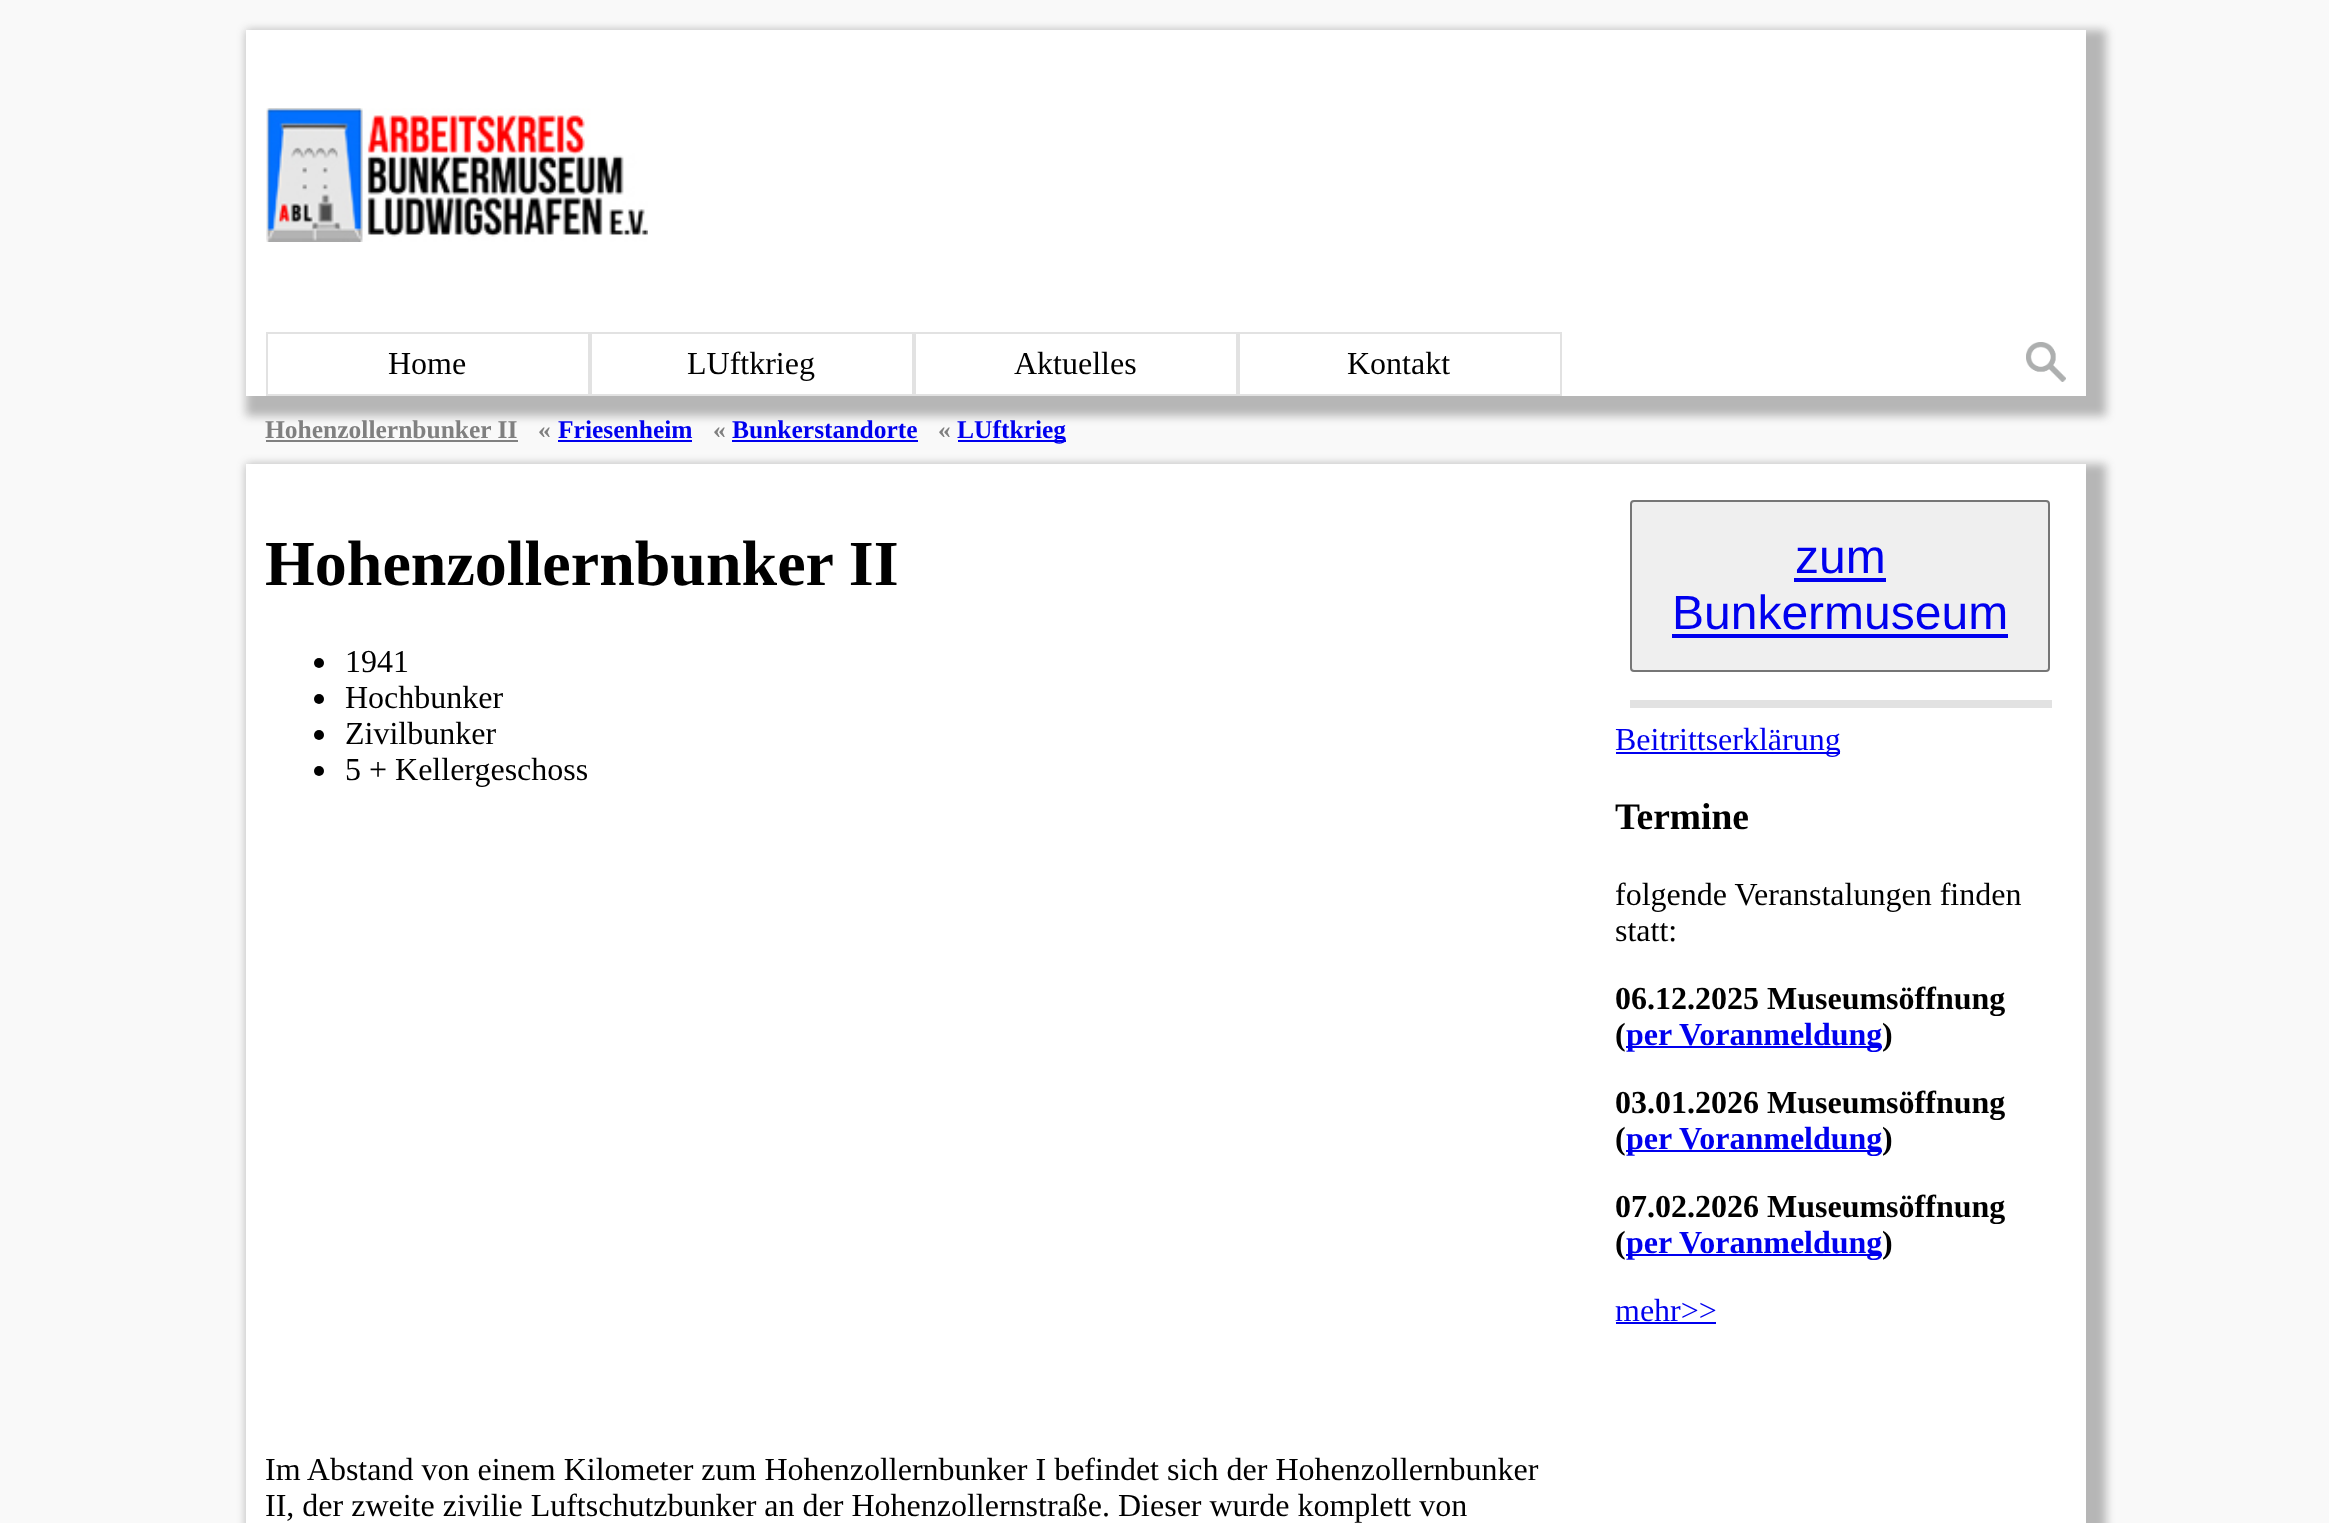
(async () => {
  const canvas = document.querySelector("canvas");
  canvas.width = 2329;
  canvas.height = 1523;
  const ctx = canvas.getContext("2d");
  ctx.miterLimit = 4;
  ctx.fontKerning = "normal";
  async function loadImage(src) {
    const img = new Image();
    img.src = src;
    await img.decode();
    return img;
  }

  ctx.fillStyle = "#f9f9f9";
  ctx.fillRect(0, 0, 2329, 1523);
  ctx.fillStyle = "rgba(46, 46, 46, 0.33)";
  ctx.filter = "blur(5px)";
  ctx.beginPath();
  ctx.rect(246, 30, 1860, 386);
  ctx.fill();
  ctx.filter = "none";
  ctx.fillStyle = "#ffffff";
  ctx.fillRect(246, 30, 1840, 366);
  ctx.drawImage(await loadImage("img/1.png"), 266, 108, 382, 134);
  ctx.strokeStyle = "#e2e2e2";
  ctx.lineWidth = 2;
  ctx.strokeRect(267, 333, 322, 62);
  ctx.strokeRect(591, 333, 322, 62);
  ctx.strokeRect(915, 333, 322, 62);
  ctx.strokeRect(1239, 333, 322, 62);
  ctx.drawImage(await loadImage("img/2.png"), 2026, 342, 40, 40);
  for (const [x, y, w, h, color] of [
    [266, 440, 252, 2, "#808080"],
    [558, 440, 134, 2, "#0000ee"],
    [732, 440, 186, 2, "#0000ee"],
    [958, 440, 108, 2, "#0000ee"],
  ]) {
    ctx.fillStyle = color;
    ctx.fillRect(x, y, w, h);
  }
  ctx.fillStyle = "rgba(46, 46, 46, 0.33)";
  ctx.filter = "blur(5px)";
  ctx.beginPath();
  ctx.rect(246, 464, 1860, 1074);
  ctx.fill();
  ctx.filter = "none";
  ctx.fillStyle = "#ffffff";
  ctx.fillRect(246, 464, 1840, 1059);
  ctx.fillStyle = "#000000";
  ctx.beginPath();
  ctx.arc(319, 663, 5, 0, Math.PI * 2);
  ctx.fill();
  ctx.beginPath();
  ctx.arc(319, 699, 5, 0, Math.PI * 2);
  ctx.fill();
  ctx.beginPath();
  ctx.arc(319, 735, 5, 0, Math.PI * 2);
  ctx.fill();
  ctx.beginPath();
  ctx.arc(319, 771, 5, 0, Math.PI * 2);
  ctx.fill();
  ctx.fillStyle = "#efefef";
  ctx.beginPath();
  ctx.roundRect(1631, 501, 418, 170, 3);
  ctx.fill();
  ctx.strokeStyle = "#767676";
  ctx.stroke();
  for (const [x, y, w, h, color] of [
    [1794, 578, 92, 4, "#0000ee"],
    [1672, 634, 336, 4, "#0000ee"],
    [1630, 700, 422, 8, "#e2e2e2"],
    [1616, 752, 224, 2, "#0000ee"],
    [1626, 1046, 256, 2, "#0000ee"],
    [1626, 1150, 256, 2, "#0000ee"],
    [1626, 1254, 256, 2, "#0000ee"],
    [1616, 1322, 100, 2, "#0000ee"],
  ]) {
    ctx.fillStyle = color;
    ctx.fillRect(x, y, w, h);
  }
  ctx.font = "32px Liberation Serif";
  ctx.fillStyle = "#000000";
  for (const [text, x, y] of [
    ["Home", 388, 374],
    ["LUftkrieg", 687, 374],
    ["Aktuelles", 1014, 374],
    ["Kontakt", 1347, 374],
  ]) {
    ctx.fillText(text, x, y);
  }
  ctx.font = "bold 25.5px Liberation Serif";
  ctx.fillStyle = "#808080";
  ctx.fillText("Hohenzollernbunker II", 265, 438);
  ctx.fillText("«", 538, 438);
  ctx.fillStyle = "#0000ee";
  ctx.fillText("Friesenheim", 558, 438);
  ctx.fillStyle = "#808080";
  ctx.fillText("«", 713, 438);
  ctx.fillStyle = "#0000ee";
  ctx.fillText("Bunkerstandorte", 732, 438);
  ctx.fillStyle = "#808080";
  ctx.fillText("«", 938, 438);
  ctx.fillStyle = "#0000ee";
  ctx.fillText("LUftkrieg", 957, 438);
  ctx.font = "bold 64px Liberation Serif";
  ctx.fillStyle = "#000000";
  ctx.fillText("Hohenzollernbunker II", 265, 585);
  ctx.font = "32px Liberation Serif";
  for (const [text, x, y] of [
    ["1941", 345, 672],
    ["Hochbunker", 345, 708],
    ["Zivilbunker", 345, 744],
    ["5 + Kellergeschoss", 345, 780],
    ["Im Abstand von einem Kilometer zum Hohenzollernbunker I befindet sich der Hohenzollernbunker", 265, 1480],
    ["II, der zweite zivilie Luftschutzbunker an der Hohenzollernstraße. Dieser wurde komplett von", 265, 1516],
  ]) {
    ctx.fillText(text, x, y);
  }
  ctx.font = "48px Liberation Sans";
  ctx.fillStyle = "#0000ee";
  ctx.fillText("zum", 1795, 573);
  ctx.fillText("Bunkermuseum", 1672, 629);
  ctx.font = "32px Liberation Serif";
  ctx.fillText("Beitrittserklärung", 1615, 750);
  ctx.font = "bold 37.5px Liberation Serif";
  ctx.fillStyle = "#000000";
  ctx.fillText("Termine", 1615, 829);
  ctx.font = "32px Liberation Serif";
  ctx.fillText("folgende Veranstalungen finden", 1615, 905);
  ctx.fillText("statt:", 1615, 941);
  ctx.font = "bold 32px Liberation Serif";
  ctx.fillText("06.12.2025 Museumsöffnung", 1615, 1009);
  ctx.fillText("(", 1615, 1045);
  ctx.fillStyle = "#0000ee";
  ctx.fillText("per Voranmeldung", 1626, 1045);
  ctx.fillStyle = "#000000";
  for (const [text, x, y] of [
    [")", 1882, 1045],
    ["03.01.2026 Museumsöffnung", 1615, 1113],
    ["(", 1615, 1149],
  ]) {
    ctx.fillText(text, x, y);
  }
  ctx.fillStyle = "#0000ee";
  ctx.fillText("per Voranmeldung", 1626, 1149);
  ctx.fillStyle = "#000000";
  for (const [text, x, y] of [
    [")", 1882, 1149],
    ["07.02.2026 Museumsöffnung", 1615, 1217],
    ["(", 1615, 1253],
  ]) {
    ctx.fillText(text, x, y);
  }
  ctx.fillStyle = "#0000ee";
  ctx.fillText("per Voranmeldung", 1626, 1253);
  ctx.fillStyle = "#000000";
  ctx.fillText(")", 1882, 1253);
  ctx.font = "32px Liberation Serif";
  ctx.fillStyle = "#0000ee";
  ctx.fillText("mehr>>", 1615, 1321);
})();
